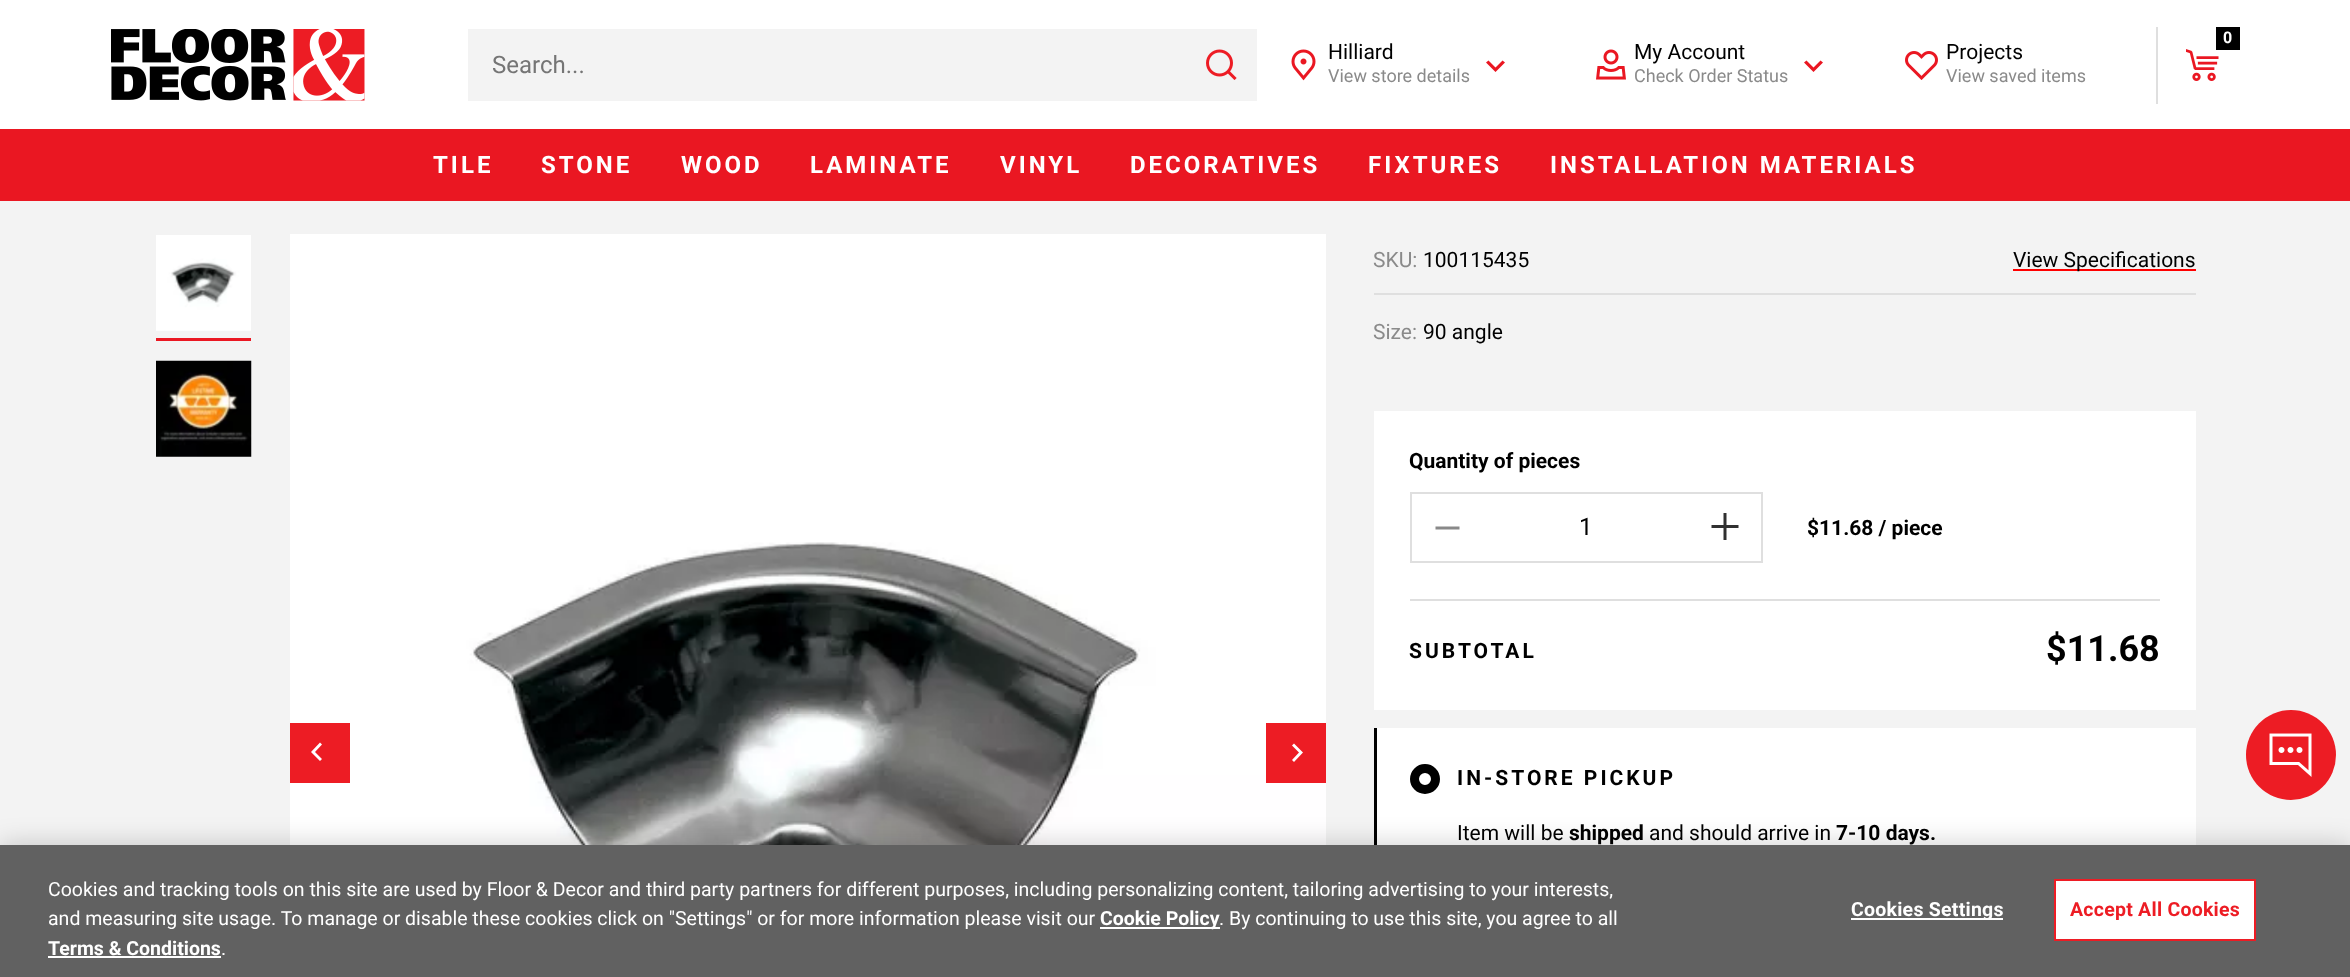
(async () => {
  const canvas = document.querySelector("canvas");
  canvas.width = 2350;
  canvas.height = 977;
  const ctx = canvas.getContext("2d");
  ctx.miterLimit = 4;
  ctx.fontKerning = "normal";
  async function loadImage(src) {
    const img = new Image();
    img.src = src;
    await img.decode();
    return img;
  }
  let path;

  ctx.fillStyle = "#f3f3f3";
  ctx.fillRect(0, 0, 2350, 977);
  ctx.fillStyle = "#ffffff";
  ctx.fillRect(0, 0, 2350, 129);
  ctx.drawImage(await loadImage("img/1.png"), 111, 29, 254, 72);
  ctx.fillStyle = "#dfdfdf";
  ctx.fillRect(2156, 27, 2, 77);
  ctx.drawImage(await loadImage("img/2.png"), 2186, 49, 33, 32);
  ctx.fillStyle = "#000000";
  ctx.fillRect(2216, 27, 24, 23);
  ctx.fillStyle = "#f3f3f3";
  ctx.fillRect(468, 29, 789, 72);
  ctx.drawImage(await loadImage("img/3.png"), 1206, 49, 31, 31);
  ctx.drawImage(await loadImage("img/4.png"), 1291, 49, 25, 32);
  ctx.fillStyle = "#ea1722";
  path = new Path2D("M1502.5 60.5L1505 62.5L1495.5 72L1486 62.5L1488.5 60.5L1495.5 67.5Z");
  ctx.fill(path, "evenodd");
  ctx.drawImage(await loadImage("img/5.png"), 1596, 49, 30, 31);
  path = new Path2D("M1820.5 60.5L1823 62.5L1813.5 72L1804 62.5L1806.5 60.5L1813.5 67.5Z");
  ctx.fill(path, "evenodd");
  ctx.drawImage(await loadImage("img/6.png"), 1905, 51, 33, 29);
  ctx.fillRect(0, 129, 2350, 72);
  ctx.drawImage(await loadImage("img/7.png"), 156, 235, 95, 96);
  ctx.fillRect(156, 338, 95, 3);
  ctx.drawImage(await loadImage("img/8.png"), 156, 360, 96, 97);
  ctx.drawImage(await loadImage("img/9.png"), 290, 234, 1036, 611);
  ctx.fillStyle = "#ed1c24";
  ctx.fillRect(290, 723, 60, 60);
  ctx.fillStyle = "#ffffff";
  path = new Path2D("M322 744.5L320 742.5L311 752L320 761L322 759L315 752Z");
  ctx.fill(path);
  ctx.fillStyle = "#ed1c24";
  ctx.fillRect(1266, 723, 60, 60);
  ctx.fillStyle = "#ffffff";
  path = new Path2D("M1292 760L1294 762L1303 752.5L1294 743.5L1292 745.5L1299 752.5Z");
  ctx.fill(path);
  for (const [x, y, w, h, color] of [
    [2013, 269, 183, 2, "#ff0000"],
    [1374, 293, 822, 2, "#dfdfdf"],
    [1374, 411, 822, 299, "#ffffff"],
  ]) {
    ctx.fillStyle = color;
    ctx.fillRect(x, y, w, h);
  }
  ctx.strokeStyle = "#dfdfdf";
  ctx.lineWidth = 2;
  ctx.strokeRect(1411, 493, 351, 69);
  ctx.fillStyle = "#898989";
  path = new Path2D("M1438.5 526.5H1459.5V529.5H1435.5V526.5Z");
  ctx.fill(path);
  ctx.drawImage(await loadImage("img/10.png"), 1711, 513, 28, 27);
  for (const [x, y, w, h, color] of [
    [1410, 599, 750, 2, "#dfdfdf"],
    [1377, 728, 819, 117, "#ffffff"],
    [1374, 728, 3, 117, "#000000"],
  ]) {
    ctx.fillStyle = color;
    ctx.fillRect(x, y, w, h);
  }
  ctx.beginPath();
  ctx.arc(1425, 779, 10.5, 0, Math.PI * 2);
  ctx.strokeStyle = "#000000";
  ctx.lineWidth = 9;
  ctx.stroke();
  ctx.fillStyle = "#ed1c24";
  ctx.beginPath();
  ctx.arc(2291, 755, 45, 0, Math.PI * 2);
  ctx.fill();
  ctx.drawImage(await loadImage("img/11.png"), 2269, 733, 43, 44);
  ctx.fillStyle = "rgba(0, 0, 0, 0.2)";
  ctx.filter = "blur(13.5px)";
  ctx.beginPath();
  ctx.rect(0, 845, 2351, 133);
  ctx.fill();
  ctx.filter = "none";
  for (const [x, y, w, h, color] of [
    [0, 845, 2350, 132, "#616161"],
    [1100, 927, 120, 2, "#ffffff"],
    [48, 956, 173, 2, "#ffffff"],
    [1851, 918, 152, 2, "#ffffff"],
  ]) {
    ctx.fillStyle = color;
    ctx.fillRect(x, y, w, h);
  }
  ctx.beginPath();
  ctx.rect(2055, 880, 200, 60);
  ctx.fill();
  ctx.strokeStyle = "#ed1c24";
  ctx.lineWidth = 2;
  ctx.stroke();
  ctx.font = "bold 16px Roboto";
  ctx.fillText("0", 2223, 43);
  ctx.font = "24px Roboto";
  ctx.fillStyle = "#757575";
  ctx.fillText("Search...", 492, 73);
  ctx.font = "21px Roboto";
  ctx.fillStyle = "#000000";
  ctx.fillText("Hilliard", 1328, 59);
  ctx.font = "18px Roboto";
  ctx.fillStyle = "#8a8a8a";
  ctx.fillText("View store details", 1328, 82);
  ctx.font = "21px Roboto";
  ctx.fillStyle = "#000000";
  ctx.fillText("My Account", 1634, 59);
  ctx.font = "18px Roboto";
  ctx.fillStyle = "#8a8a8a";
  ctx.fillText("Check Order Status", 1634, 82);
  ctx.font = "21px Roboto";
  ctx.fillStyle = "#000000";
  ctx.fillText("Projects", 1946, 59);
  ctx.font = "18px Roboto";
  ctx.fillStyle = "#8a8a8a";
  ctx.fillText("View saved items", 1946, 82);
  ctx.letterSpacing = "3px";
  ctx.font = "bold 24px Roboto";
  ctx.fillStyle = "#ffffff";
  for (const [text, x, y] of [
    ["TILE", 433, 173],
    ["STONE", 541, 173],
    ["WOOD", 681, 173],
    ["LAMINATE", 810, 173],
    ["VINYL", 1000, 173],
    ["DECORATIVES", 1130, 173],
    ["FIXTURES", 1368, 173],
    ["INSTALLATION MATERIALS", 1550, 173],
  ]) {
    ctx.fillText(text, x, y);
  }
  ctx.letterSpacing = "0px";
  ctx.font = "21px Roboto";
  ctx.fillStyle = "#8a8a8a";
  ctx.fillText("SKU:", 1373, 267);
  ctx.fillStyle = "#000000";
  ctx.fillText("100115435", 1423, 267);
  ctx.fillText("View Specifications", 2013, 267);
  ctx.fillStyle = "#8a8a8a";
  ctx.fillText("Size:", 1373, 339);
  ctx.fillStyle = "#000000";
  ctx.fillText("90 angle", 1423, 339);
  ctx.font = "bold 21px Roboto";
  ctx.fillText("Quantity of pieces", 1409, 468);
  ctx.font = "24px Roboto";
  ctx.fillText("1", 1579, 535);
  ctx.font = "bold 21px Roboto";
  ctx.fillText("$11.68 / piece", 1807, 535);
  ctx.letterSpacing = "3px";
  ctx.fillText("SUBTOTAL", 1409, 658);
  ctx.letterSpacing = "0px";
  ctx.font = "bold 36px Roboto";
  ctx.fillText("$11.68", 2046, 661);
  ctx.letterSpacing = "3px";
  ctx.font = "bold 21px Roboto";
  ctx.fillText("IN-STORE PICKUP", 1457, 785);
  ctx.letterSpacing = "0px";
  ctx.font = "21px Roboto";
  ctx.fillText("Item will be", 1457, 840);
  ctx.font = "bold 21px Roboto";
  ctx.fillText("shipped", 1569, 840);
  ctx.font = "21px Roboto";
  ctx.fillText("and should arrive in", 1649, 840);
  ctx.font = "bold 21px Roboto";
  ctx.fillText("7-10 days.", 1836, 840);
  ctx.font = "19.5px Roboto";
  ctx.fillStyle = "#ffffff";
  ctx.fillText("Cookies and tracking tools on this site are used by Floor & Decor and third party partners for different purposes, including personalizing content, tailoring advertising to your interests,", 48, 896);
  ctx.fillText("and measuring site usage. To manage or disable these cookies click on \"Settings\" or for more information please visit our", 48, 925);
  ctx.font = "bold 19.5px Roboto";
  ctx.fillText("Cookie Policy", 1100, 925);
  ctx.font = "19.5px Roboto";
  ctx.fillText(". By continuing to use this site, you agree to all", 1219, 925);
  ctx.font = "bold 19.5px Roboto";
  ctx.fillText("Terms & Conditions", 48, 955);
  ctx.font = "19.5px Roboto";
  ctx.fillText(".", 221, 955);
  ctx.letterSpacing = "0.25px";
  ctx.font = "bold 19.5px Roboto";
  ctx.fillText("Cookies Settings", 1851, 916);
  ctx.fillStyle = "#ed1c24";
  ctx.fillText("Accept All Cookies", 2070, 916);
})();
